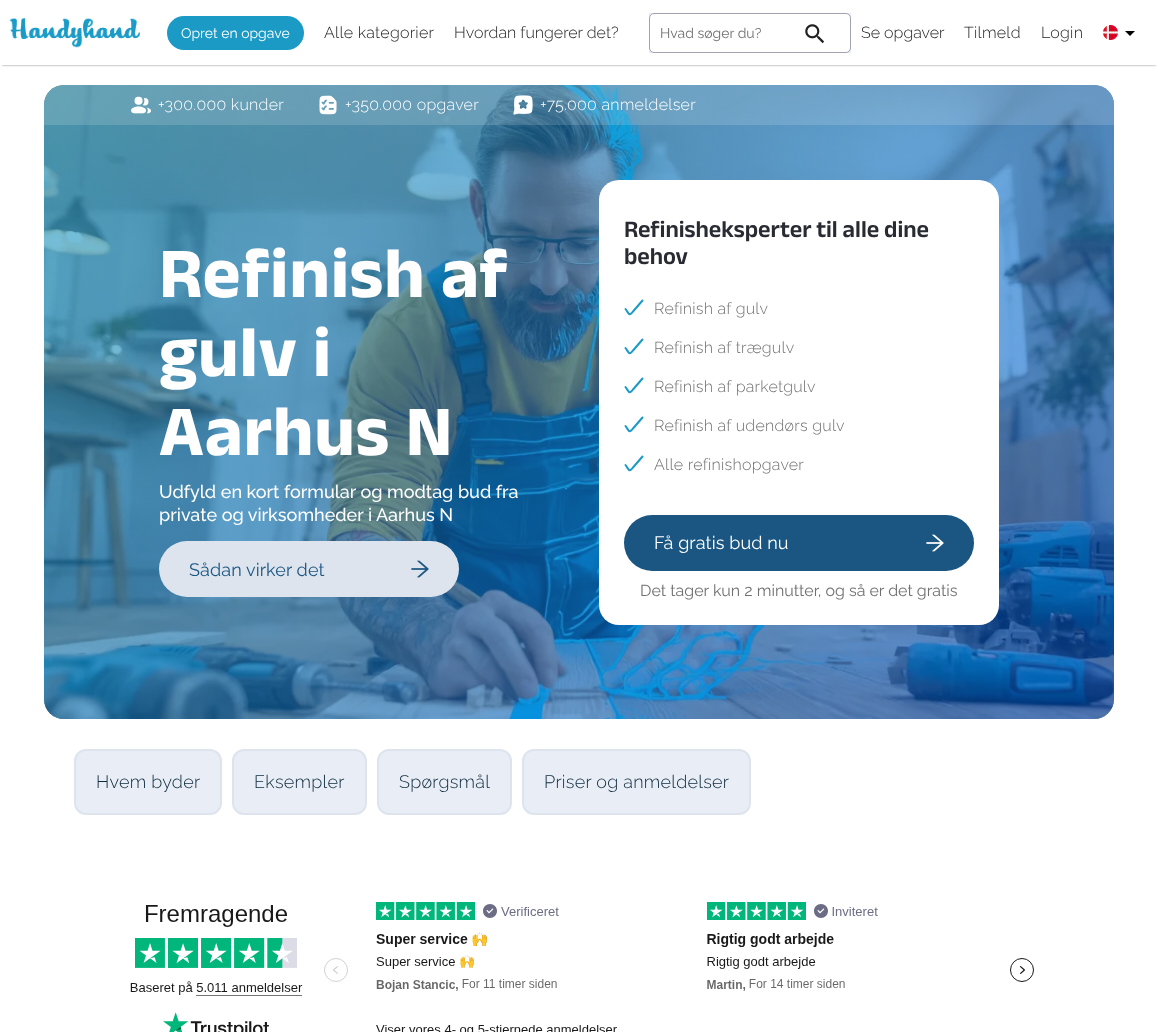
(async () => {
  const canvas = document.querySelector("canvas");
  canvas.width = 1158;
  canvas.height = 1032;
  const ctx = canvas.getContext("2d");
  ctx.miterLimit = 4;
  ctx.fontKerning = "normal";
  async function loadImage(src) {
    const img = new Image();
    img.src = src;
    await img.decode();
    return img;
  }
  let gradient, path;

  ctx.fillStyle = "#ffffff";
  ctx.fillRect(0, 0, 1158, 1032);
  ctx.save();
  ctx.beginPath();
  ctx.rect(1, 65, 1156, 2);
  ctx.clip();
  ctx.fillStyle = "rgba(0, 0, 0, 0.5)";
  ctx.filter = "blur(1px)";
  ctx.beginPath();
  ctx.rect(2, 4, 1154, 61);
  ctx.fill();
  ctx.filter = "none";
  ctx.restore();
  ctx.drawImage(await loadImage("img/1.png"), 10, 17, 130, 31);
  ctx.fillStyle = "#1b9ac6";
  ctx.beginPath();
  ctx.roundRect(167, 16, 137, 34, 17);
  ctx.fill();
  ctx.fillStyle = "#e9eef6";
  ctx.fillRect(649, 13, 202, 40);
  ctx.fillStyle = "#ffffff";
  ctx.beginPath();
  ctx.roundRect(649.5, 13.5, 201, 39, 4.5);
  ctx.fill();
  ctx.strokeStyle = "#a1a2b2";
  ctx.stroke();
  ctx.drawImage(await loadImage("img/2.png"), 805, 24, 20, 20);
  ctx.drawImage(await loadImage("img/3.png"), 1103, 25, 15, 15);
  ctx.fillStyle = "#000000";
  path = new Path2D("M1125 31H1135L1130 36Z");
  ctx.fill(path);
  gradient = ctx.createLinearGradient(153, -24, 1005, 828);
  gradient.addColorStop(0, "#77c3dd");
  gradient.addColorStop(1, "#6698e1");
  ctx.fillStyle = gradient;
  ctx.beginPath();
  ctx.roundRect(44, 85, 1070, 634, 20);
  ctx.fill();
  ctx.drawImage(await loadImage("img/4.png"), 44, 85, 1070, 634);
  gradient = ctx.createLinearGradient(153, -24, 1005, 828);
  gradient.addColorStop(0, "rgba(27, 154, 198, 0.6)");
  gradient.addColorStop(1, "rgba(0, 82, 204, 0.6)");
  ctx.fillStyle = gradient;
  ctx.beginPath();
  ctx.roundRect(44, 85, 1070, 634, 20);
  ctx.fill();
  ctx.fillStyle = "rgba(255, 255, 255, 0.15)";
  ctx.beginPath();
  ctx.roundRect(44, 85, 1070, 40, [20, 20, 0, 0]);
  ctx.fill();
  ctx.drawImage(await loadImage("img/5.png"), 131, 96, 20, 18);
  ctx.drawImage(await loadImage("img/6.png"), 319, 95, 18, 20);
  ctx.drawImage(await loadImage("img/7.png"), 513, 95, 20, 20);
  ctx.fillStyle = "#dde4ee";
  ctx.beginPath();
  ctx.roundRect(159, 541, 300, 56, 28);
  ctx.fill();
  ctx.drawImage(await loadImage("img/8.png"), 411, 560, 18, 18);
  ctx.fillStyle = "#ffffff";
  ctx.beginPath();
  ctx.roundRect(599, 180, 400, 445, 20);
  ctx.fill();
  path = new Path2D("M625.5 309C629.5 314.5 629 316.5 633 311.5L642.5 300.5M625.5 348C629.5 353.5 629 355.5 633 350.5L642.5 339.5");
  ctx.strokeStyle = "#1b9ac6";
  ctx.lineWidth = 2;
  ctx.lineCap = "round";
  ctx.lineJoin = "round";
  ctx.stroke(path);
  path = new Path2D("M625.5 387C629.5 392.5 629 394.5 633 389.5L642.5 378.5M625.5 426C629.5 431.5 629 433.5 633 428.5L642.5 417.5");
  ctx.stroke(path);
  path = new Path2D("M625.5 465C629.5 470.5 629 472.5 633 467.5L642.5 456.5");
  ctx.stroke(path);
  ctx.fillStyle = "#1a5681";
  ctx.beginPath();
  ctx.roundRect(624, 515, 350, 56, 28);
  ctx.fill();
  ctx.drawImage(await loadImage("img/9.png"), 926, 534, 18, 18);
  ctx.fillStyle = "#e9eef6";
  ctx.beginPath();
  ctx.roundRect(75, 750, 146, 64, 11);
  ctx.fill();
  ctx.strokeStyle = "#dde4ee";
  ctx.lineJoin = "miter";
  ctx.stroke();
  ctx.beginPath();
  ctx.roundRect(233, 750, 133, 64, 11);
  ctx.fill();
  ctx.stroke();
  ctx.beginPath();
  ctx.roundRect(378, 750, 133, 64, 11);
  ctx.fill();
  ctx.stroke();
  ctx.beginPath();
  ctx.roundRect(523, 750, 227, 64, 11);
  ctx.fill();
  ctx.stroke();
  ctx.drawImage(await loadImage("img/10.png"), 130, 902, 904, 130);
  ctx.font = "14px Raleway";
  ctx.fillStyle = "#ffffff";
  ctx.fillText("Opret en opgave", 181, 38);
  ctx.letterSpacing = "0.25px";
  ctx.font = "300 16px Raleway";
  ctx.fillStyle = "#202020";
  ctx.fillText("Alle kategorier", 324, 38);
  ctx.letterSpacing = "0px";
  ctx.fillText("Hvordan fungerer det?", 454, 38);
  ctx.font = "14px Raleway";
  ctx.fillStyle = "#707070";
  ctx.fillText("Hvad søger du?", 660, 38);
  ctx.font = "300 16px Raleway";
  ctx.fillStyle = "#202020";
  ctx.fillText("Se opgaver", 861, 38);
  ctx.letterSpacing = "0.25px";
  ctx.fillText("Tilmeld", 964, 38);
  ctx.fillText("Login", 1041, 38);
  ctx.fillStyle = "#ffffff";
  for (const [text, x, y] of [
    ["+300.000 kunder", 158, 110],
    ["+350.000 opgaver", 345, 110],
    ["+75.000 anmeldelser", 540, 110],
  ]) {
    ctx.fillText(text, x, y);
  }
  ctx.letterSpacing = "0.75px";
  ctx.font = "bold 72px Anek Latin";
  for (const [text, x, y] of [
    ["Refinish af", 159, 297],
    ["gulv i", 159, 376],
    ["Aarhus N", 159, 455],
  ]) {
    ctx.fillText(text, x, y);
  }
  ctx.letterSpacing = "0px";
  ctx.font = "500 18px Raleway";
  ctx.fillText("Udfyld en kort formular og modtag bud fra", 159, 498);
  ctx.fillText("private og virksomheder i Aarhus N", 159, 521);
  ctx.letterSpacing = "0.1px";
  ctx.font = "18px Raleway";
  ctx.fillStyle = "#1a5681";
  ctx.fillText("Sådan virker det", 189, 576);
  ctx.letterSpacing = "0px";
  ctx.font = "600 24px Anek Latin";
  ctx.fillStyle = "#292b32";
  ctx.fillText("Refinisheksperter til alle dine", 624, 237);
  ctx.fillText("behov", 624, 264);
  ctx.letterSpacing = "0.25px";
  ctx.font = "300 16px Raleway";
  ctx.fillStyle = "#707070";
  for (const [text, x, y] of [
    ["Refinish af gulv", 654, 314],
    ["Refinish af trægulv", 654, 353],
    ["Refinish af parketgulv", 654, 392],
    ["Refinish af udendørs gulv", 654, 431],
    ["Alle refinishopgaver", 654, 470],
  ]) {
    ctx.fillText(text, x, y);
  }
  ctx.letterSpacing = "0.1px";
  ctx.font = "18px Raleway";
  ctx.fillStyle = "#ffffff";
  ctx.fillText("Få gratis bud nu", 654, 549);
  ctx.letterSpacing = "0px";
  ctx.font = "16px Raleway";
  ctx.fillStyle = "#707070";
  ctx.fillText("Det tager kun 2 minutter, og så er det gratis", 640, 596);
  ctx.letterSpacing = "0.25px";
  ctx.font = "300 18px Raleway";
  ctx.fillStyle = "#0d293d";
  for (const [text, x, y] of [
    ["Hvem byder", 96, 788],
    ["Eksempler", 254, 788],
    ["Spørgsmål", 399, 788],
    ["Priser og anmeldelser", 544, 788],
  ]) {
    ctx.fillText(text, x, y);
  }
})();
